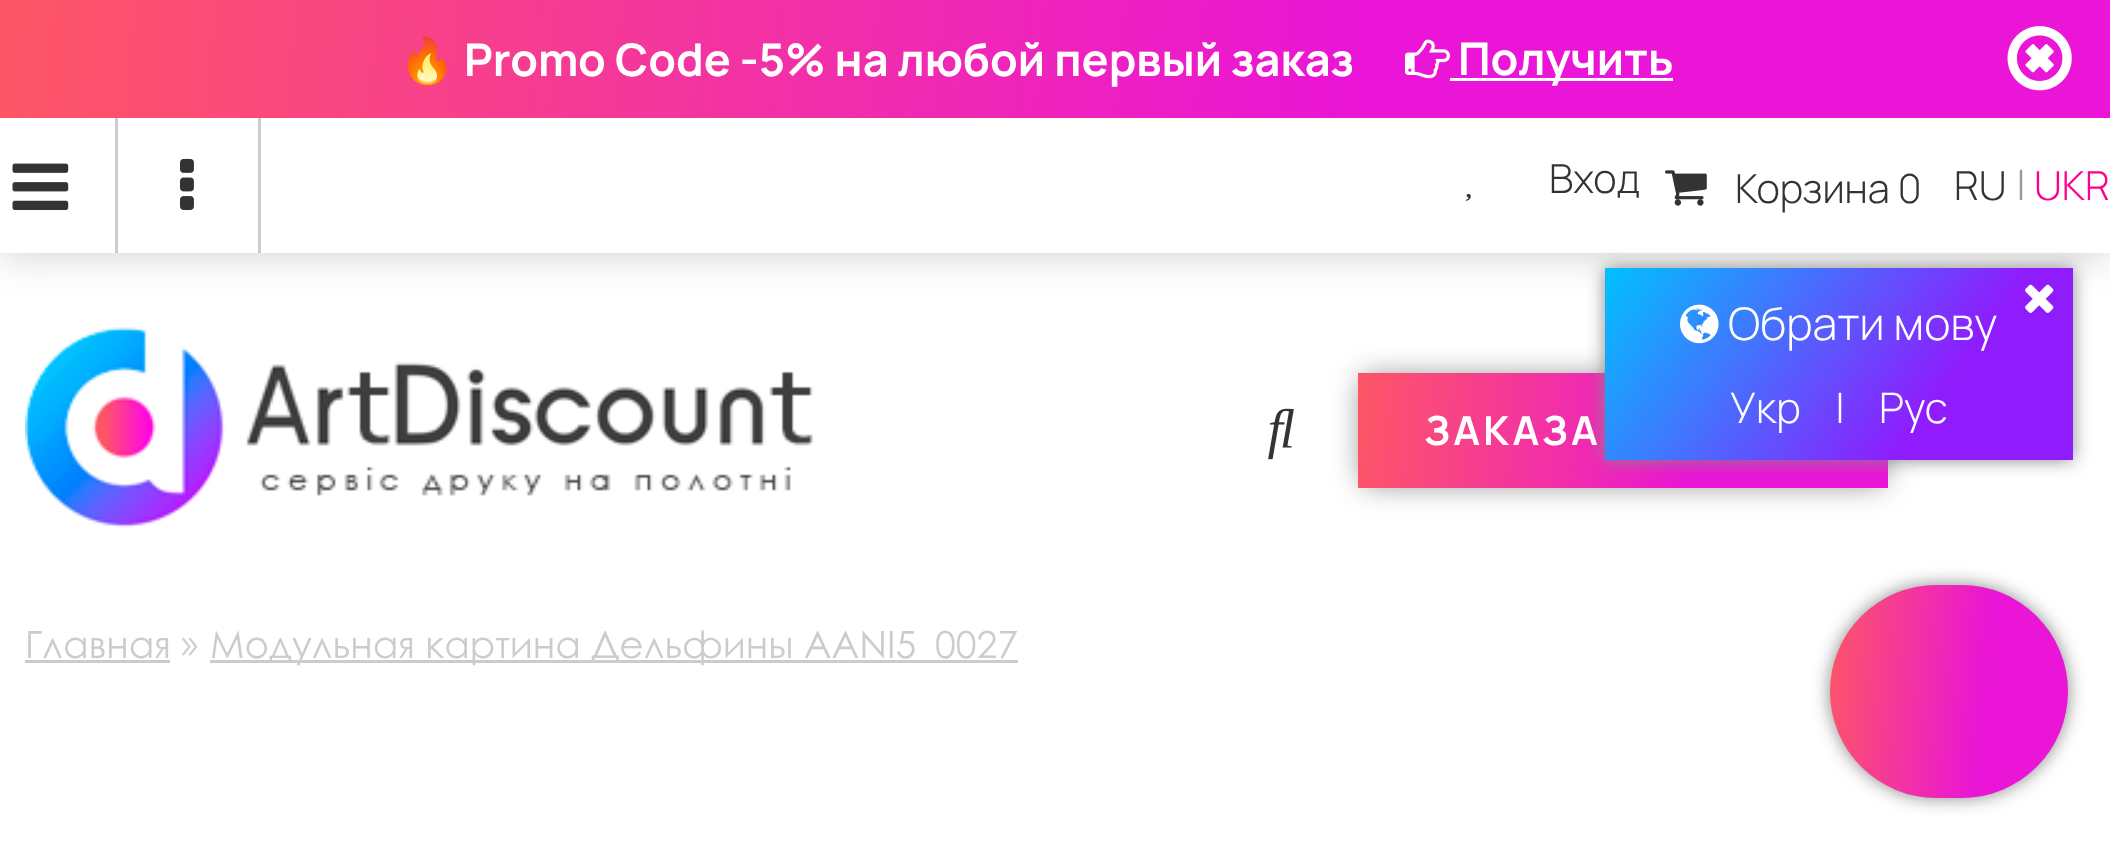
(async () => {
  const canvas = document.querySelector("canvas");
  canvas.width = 2110;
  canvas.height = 856;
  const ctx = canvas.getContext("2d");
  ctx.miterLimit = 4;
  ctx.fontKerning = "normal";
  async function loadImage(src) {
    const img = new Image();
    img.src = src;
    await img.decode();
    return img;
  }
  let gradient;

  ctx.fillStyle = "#ffffff";
  ctx.fillRect(0, 0, 2110, 856);
  ctx.fillStyle = "#cccccc";
  ctx.filter = "blur(20px)";
  ctx.beginPath();
  ctx.rect(0, 0, 2110, 253);
  ctx.fill();
  ctx.filter = "none";
  ctx.fillStyle = "#ffffff";
  ctx.fillRect(0, 118, 2110, 135);
  gradient = ctx.createLinearGradient(2.8, -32, 2107, 150);
  gradient.addColorStop(0, "#fd5665");
  gradient.addColorStop(0.64, "#ea15d6");
  ctx.fillStyle = gradient;
  ctx.fillRect(0, 0, 2110, 118);
  ctx.drawImage(await loadImage("img/1.png"), 1405, 39, 45, 40);
  ctx.fillStyle = "#ffffff";
  ctx.fillRect(1450, 78, 223, 3);
  ctx.drawImage(await loadImage("img/2.png"), 2007, 26, 65, 65);
  ctx.fillStyle = "#cccccc";
  ctx.fillRect(115, 118, 3, 135);
  ctx.drawImage(await loadImage("img/3.png"), 12, 163, 57, 47);
  ctx.fillRect(258, 118, 3, 135);
  ctx.drawImage(await loadImage("img/4.png"), 180, 158, 14, 52);
  ctx.drawImage(await loadImage("img/5.png"), 1465, 193, 6, 8);
  ctx.drawImage(await loadImage("img/6.png"), 1665, 170, 42, 36);
  ctx.fillStyle = "rgba(0, 0, 0, 0.5)";
  ctx.filter = "blur(15px)";
  ctx.beginPath();
  ctx.rect(1363, 378, 520, 105);
  ctx.fill();
  ctx.filter = "none";
  gradient = ctx.createLinearGradient(1355, 407, 1890, 453);
  gradient.addColorStop(0, "#fd5665");
  gradient.addColorStop(0.64, "#ea15d6");
  ctx.fillStyle = gradient;
  ctx.fillRect(1358, 373, 530, 115);
  ctx.fillStyle = "#888888";
  ctx.filter = "blur(9px)";
  ctx.beginPath();
  ctx.rect(1605, 268, 468, 192);
  ctx.fill();
  ctx.filter = "none";
  gradient = ctx.createLinearGradient(1640, 219, 2038, 508);
  gradient.addColorStop(0, "#00c1fe");
  gradient.addColorStop(0.71, "#901bfd");
  ctx.fillStyle = gradient;
  ctx.fillRect(1605, 268, 468, 192);
  ctx.drawImage(await loadImage("img/7.png"), 2025, 284, 29, 29);
  ctx.drawImage(await loadImage("img/8.png"), 1680, 304, 39, 40);
  ctx.drawImage(await loadImage("img/9.png"), 25, 327, 788, 201);
  ctx.drawImage(await loadImage("img/10.png"), 1268, 408, 26, 52);
  ctx.fillStyle = "#cccccc";
  ctx.fillRect(25, 660, 145, 3);
  ctx.fillRect(210, 660, 808, 3);
  ctx.fillStyle = "#888888";
  ctx.filter = "blur(9px)";
  ctx.beginPath();
  ctx.roundRect(1830, 585, 238, 213, 106.5);
  ctx.fill();
  ctx.filter = "none";
  gradient = ctx.createLinearGradient(1822, 680, 2076, 702);
  gradient.addColorStop(0, "#fd5665");
  gradient.addColorStop(0.64, "#ea15d6");
  ctx.fillStyle = gradient;
  ctx.beginPath();
  ctx.roundRect(1830, 585, 238, 213, 106.5);
  ctx.fill();
  ctx.font = "bold 45px Noto Color Emoji";
  ctx.fillStyle = "#ffffff";
  ctx.fillText("🔥", 399, 76);
  ctx.font = "bold 45px Manrope";
  ctx.fillText("Promo Code -5% на любой первый заказ", 464, 76);
  ctx.fillText("Получить", 1458, 75);
  ctx.font = "300 40px Manrope";
  ctx.fillStyle = "#333333";
  for (const [text, x, y] of [
    ["Вход", 1549, 193],
    ["Корзина 0", 1735, 203],
    ["RU", 1954, 200],
  ]) {
    ctx.fillText(text, x, y);
  }
  ctx.font = "300 42px Manrope";
  ctx.fillStyle = "#999999";
  ctx.fillText("|", 2016, 200);
  ctx.font = "300 40px Manrope";
  ctx.fillStyle = "#ff008c";
  ctx.fillText("UKR", 2034, 200);
  ctx.font = "300 45px Manrope";
  ctx.fillStyle = "#ffffff";
  ctx.fillText("Обрати мову", 1728, 340);
  ctx.font = "300 42px Manrope";
  for (const [text, x, y] of [
    ["Укр", 1730, 423],
    ["|", 1835, 423],
    ["Рус", 1879, 423],
  ]) {
    ctx.fillText(text, x, y);
  }
  ctx.letterSpacing = "3.25px";
  ctx.font = "bold 40px Manrope";
  ctx.fillText("ЗАКАЗА", 1424, 445);
  ctx.letterSpacing = "0px";
  ctx.font = "37.5px Century Gothic";
  ctx.fillStyle = "#cccccc";
  ctx.fillText("Главная", 25, 658);
  ctx.font = "300 42px Manrope";
  ctx.fillText("»", 179, 658);
  ctx.font = "37.5px Century Gothic";
  ctx.fillText("Модульная картина Дельфины AANI5_0027", 210, 658);
})();
